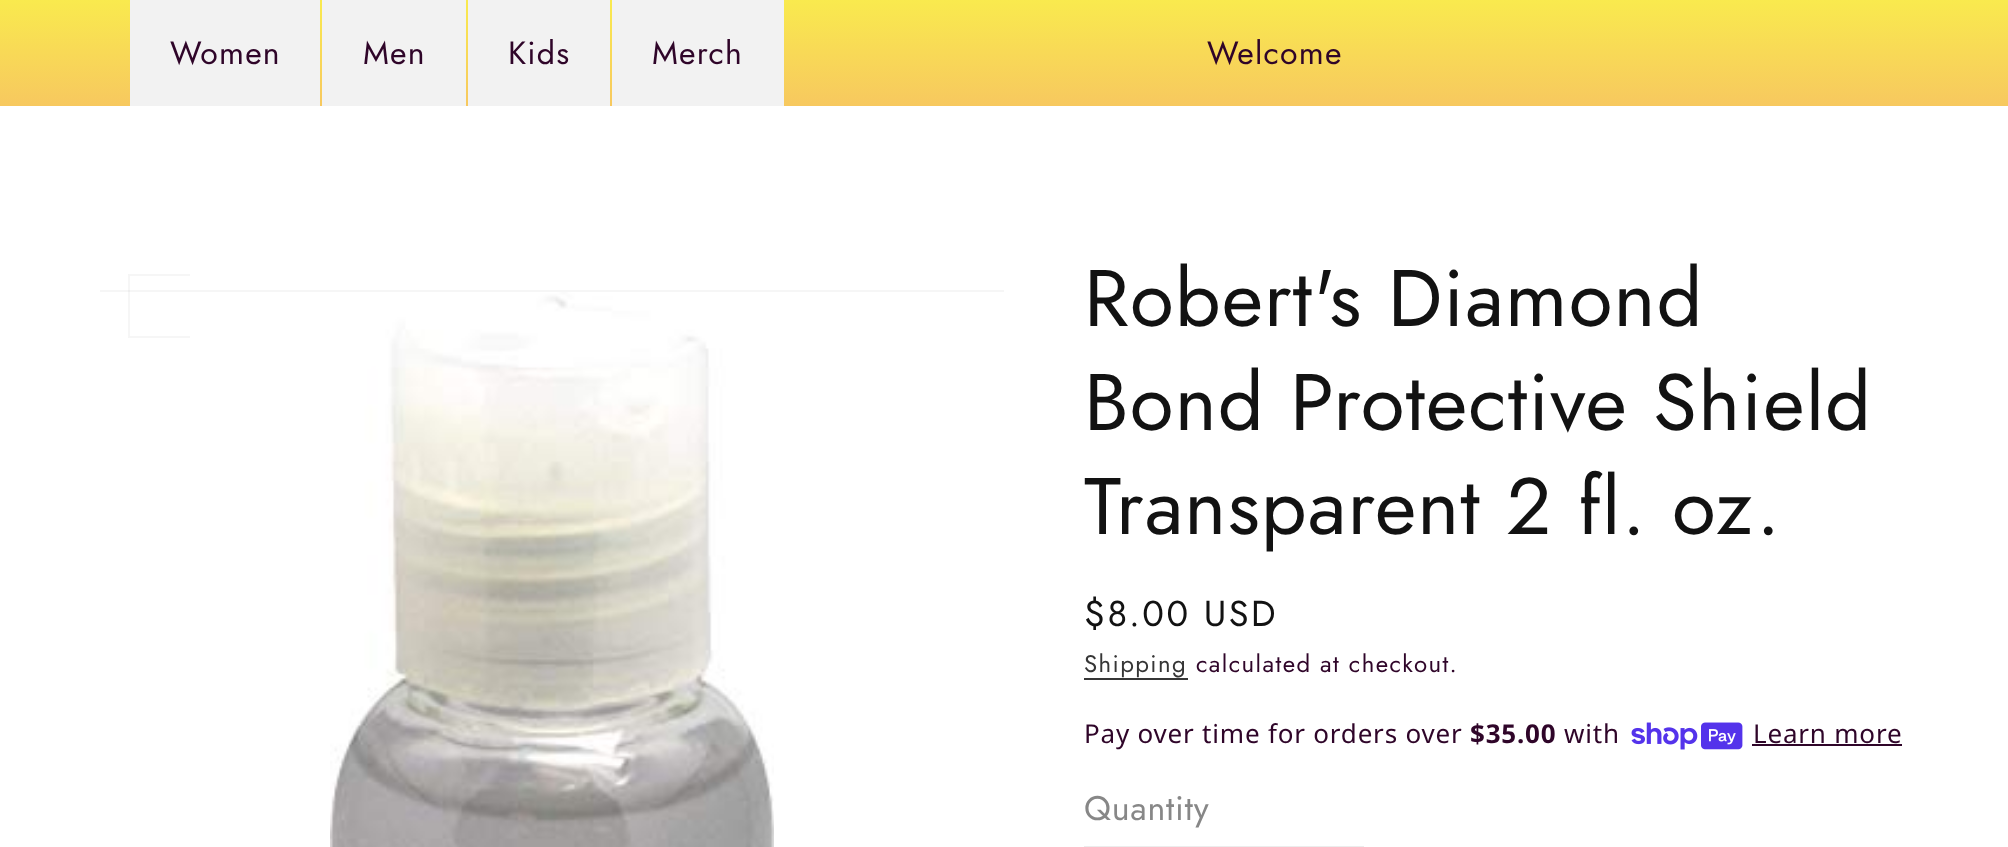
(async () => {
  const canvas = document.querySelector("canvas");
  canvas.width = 2008;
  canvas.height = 847;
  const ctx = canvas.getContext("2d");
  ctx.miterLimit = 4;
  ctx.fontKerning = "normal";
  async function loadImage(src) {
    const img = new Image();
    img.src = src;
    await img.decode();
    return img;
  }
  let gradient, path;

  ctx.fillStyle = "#ffffff";
  ctx.fillRect(0, 0, 2008, 847);
  gradient = ctx.createLinearGradient(1004, 0, 1004, 106);
  gradient.addColorStop(0, "#f9ea4e");
  gradient.addColorStop(1, "#f7c85f");
  ctx.fillStyle = gradient;
  ctx.fillRect(0, 0, 2008, 106);
  for (const [x, y, w, h, color] of [
    [130, 0, 190, 106, "#f2f2f2"],
    [322, 0, 144, 106, "#f2f2f2"],
    [468, 0, 142, 106, "#f2f2f2"],
    [612, 0, 172, 106, "#f2f2f2"],
  ]) {
    ctx.fillStyle = color;
    ctx.fillRect(x, y, w, h);
  }
  ctx.fillStyle = "#f6f6f6";
  path = new Path2D("M128 274H190V276H130Z");
  ctx.fill(path);
  path = new Path2D("M190 338H128L130 336H190Z");
  ctx.fill(path);
  ctx.fillStyle = "rgba(18, 18, 18, 0.04)";
  path = new Path2D("M128 338V274L130 276V336Z");
  ctx.fill(path);
  ctx.fillRect(100, 290, 904, 2);
  ctx.drawImage(await loadImage("img/1.png"), 330, 292, 444, 555);
  ctx.fillStyle = "#363636";
  ctx.fillRect(1084, 678, 104, 2);
  ctx.drawImage(await loadImage("img/2.png"), 1631, 722, 112, 28);
  ctx.fillStyle = "#2f0529";
  ctx.fillRect(1752, 744, 150, 2);
  ctx.strokeStyle = "#ececec";
  ctx.lineWidth = 2;
  ctx.strokeRect(1085, 847, 278, 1);
  ctx.letterSpacing = "1.2px";
  ctx.font = "32px Jost";
  for (const [text, x, y] of [
    ["Women", 170, 64],
    ["Men", 363, 64],
    ["Kids", 508, 64],
    ["Merch", 652, 64],
    ["Welcome", 1207, 64],
  ]) {
    ctx.fillText(text, x, y);
  }
  ctx.font = "80px Jost";
  ctx.fillStyle = "#121212";
  for (const [text, x, y] of [
    ["Robert's Diamond", 1084, 326],
    ["Bond Protective Shield", 1084, 430],
    ["Transparent 2 fl. oz.", 1084, 534],
  ]) {
    ctx.fillText(text, x, y);
  }
  ctx.letterSpacing = "2.5px";
  ctx.font = "36px Jost";
  ctx.fillText("$8.00 USD", 1084, 626);
  ctx.letterSpacing = "1.4px";
  ctx.font = "24px Jost";
  ctx.fillStyle = "#363636";
  ctx.fillText("Shipping", 1084, 672);
  ctx.fillStyle = "#2f0529";
  ctx.fillText("calculated at checkout.", 1196, 672);
  ctx.letterSpacing = "0.8px";
  ctx.font = "26px Noto Sans";
  ctx.fillText("Pay over time for orders over", 1084, 743);
  ctx.font = "bold 26px Noto Sans";
  ctx.fillText("$35.00", 1470, 743);
  ctx.font = "26px Noto Sans";
  ctx.fillText("with", 1564, 743);
  ctx.fillText("Learn more", 1753, 743);
  ctx.font = "34px Jost";
  ctx.fillStyle = "#878787";
  ctx.fillText("Quantity", 1084, 820);
})();
